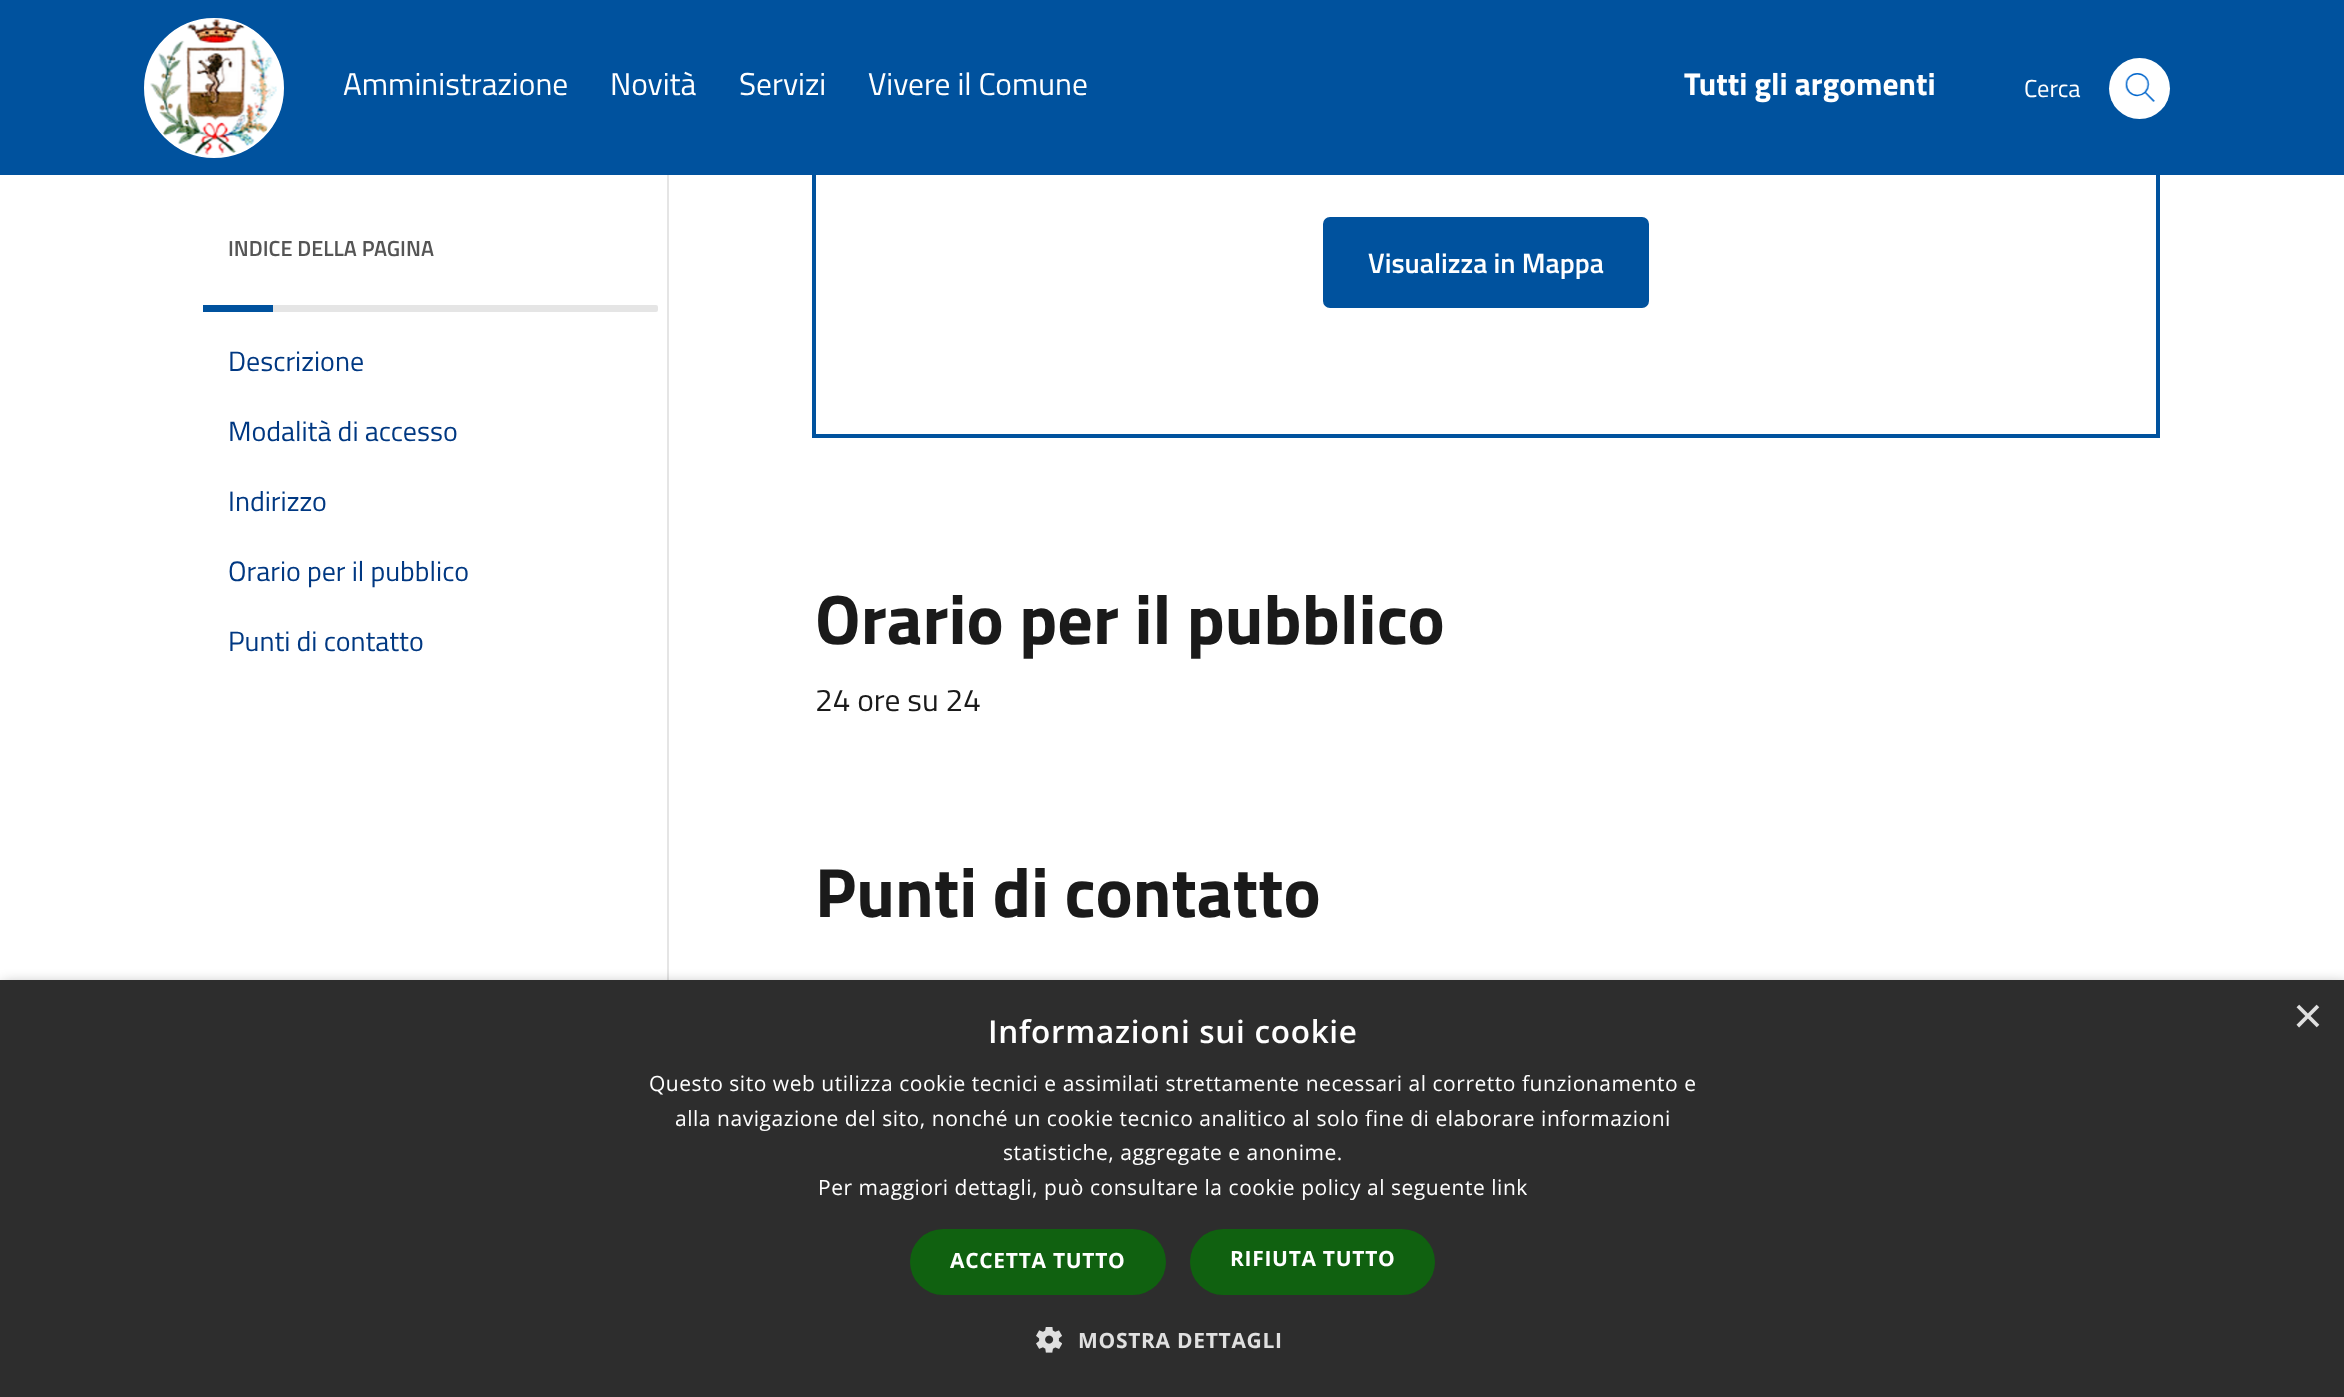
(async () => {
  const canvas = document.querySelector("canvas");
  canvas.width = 2344;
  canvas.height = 1397;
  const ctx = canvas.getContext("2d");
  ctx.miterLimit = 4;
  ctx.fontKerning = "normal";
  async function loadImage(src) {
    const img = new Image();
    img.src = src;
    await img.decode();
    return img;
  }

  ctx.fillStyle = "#ffffff";
  ctx.fillRect(0, 0, 2344, 1397);
  ctx.strokeStyle = "#00529e";
  ctx.lineWidth = 4;
  ctx.strokeRect(814, 90, 1344, 346);
  ctx.fillStyle = "#00529e";
  ctx.fillRect(0, 0, 2344, 175);
  ctx.fillStyle = "#ffffff";
  ctx.beginPath();
  ctx.arc(214, 88, 69, 0, Math.PI * 2);
  ctx.fill();
  ctx.strokeStyle = "#ffffff";
  ctx.lineWidth = 2;
  ctx.stroke();
  ctx.drawImage(await loadImage("img/1.png"), 150, 19, 127, 137);
  ctx.beginPath();
  ctx.arc(2139.5, 88.5, 30.5, 0, Math.PI * 2);
  ctx.fill();
  ctx.drawImage(await loadImage("img/2.png"), 2125, 73, 30, 29);
  ctx.fillStyle = "#e5e5e5";
  ctx.fillRect(667, 175, 2, 805);
  ctx.beginPath();
  ctx.roundRect(203, 305, 455, 7, 2);
  ctx.fill();
  ctx.fillStyle = "#00529e";
  ctx.fillRect(203, 305, 70, 7);
  ctx.beginPath();
  ctx.roundRect(1325, 219, 322, 87, 5);
  ctx.fill();
  ctx.strokeStyle = "#00529e";
  ctx.lineWidth = 4;
  ctx.stroke();
  ctx.fillStyle = "rgba(0, 0, 0, 0.35)";
  ctx.filter = "blur(7px)";
  ctx.beginPath();
  ctx.rect(2, 984, 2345, 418);
  ctx.fill();
  ctx.filter = "none";
  ctx.fillStyle = "#2d2d2d";
  ctx.fillRect(0, 980, 2344, 417);
  ctx.fillStyle = "#106110";
  ctx.beginPath();
  ctx.roundRect(910, 1229, 256, 66, 33);
  ctx.fill();
  ctx.beginPath();
  ctx.roundRect(1190, 1229, 245, 66, 33);
  ctx.fill();
  ctx.drawImage(await loadImage("img/3.png"), 1036, 1327, 26, 26);
  ctx.font = "31.5px Titillium Web";
  ctx.fillStyle = "#ffffff";
  for (const [text, x, y] of [
    ["Amministrazione", 343, 95],
    ["Novità", 610, 95],
    ["Servizi", 739, 95],
    ["Vivere il Comune", 868, 95],
  ]) {
    ctx.fillText(text, x, y);
  }
  ctx.font = "bold 31.5px Titillium Web";
  ctx.fillText("Tutti gli argomenti", 1684, 95);
  ctx.font = "24.5px Titillium Web";
  ctx.fillText("Cerca", 2024, 97);
  ctx.font = "600 21.75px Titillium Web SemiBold";
  ctx.fillStyle = "#555555";
  ctx.fillText("INDICE DELLA PAGINA", 228, 256);
  ctx.font = "28px Titillium Web";
  ctx.fillStyle = "#003882";
  for (const [text, x, y] of [
    ["Descrizione", 228, 371],
    ["Modalità di accesso", 228, 441],
    ["Indirizzo", 228, 511],
    ["Orario per il pubblico", 228, 581],
    ["Punti di contatto", 228, 651],
  ]) {
    ctx.fillText(text, x, y);
  }
  ctx.font = "600 28px Titillium Web SemiBold";
  ctx.fillStyle = "#ffffff";
  ctx.fillText("Visualizza in Mappa", 1368, 273);
  ctx.font = "bold 70px Titillium Web";
  ctx.fillStyle = "#1a1a1a";
  ctx.fillText("Orario per il pubblico", 815, 644);
  ctx.font = "31.5px Titillium Web";
  ctx.fillText("24 ore su 24", 815, 711);
  ctx.font = "bold 70px Titillium Web";
  ctx.fillText("Punti di contatto", 815, 917);
  ctx.letterSpacing = "0.7px";
  ctx.font = "600 31.5px Open Sans";
  ctx.fillStyle = "#ffffff";
  ctx.fillText("Informazioni sui cookie", 988, 1043);
  ctx.letterSpacing = "0px";
  ctx.font = "51px Liberation Sans";
  ctx.fillStyle = "#e0e0e0";
  ctx.fillText("×", 2293, 1033);
  ctx.letterSpacing = "0.53px";
  ctx.font = "21px Open Sans";
  ctx.fillStyle = "#ffffff";
  for (const [text, x, y] of [
    ["Questo sito web utilizza cookie tecnici e assimilati strettamente necessari al corretto funzionamento e", 649, 1091],
    ["alla navigazione del sito, nonché un cookie tecnico analitico al solo fine di elaborare informazioni", 675, 1126],
    ["statistiche, aggregate e anonime.", 1003, 1160],
    ["Per maggiori dettagli, può consultare la cookie policy al seguente link", 818, 1195],
  ]) {
    ctx.fillText(text, x, y);
  }
  ctx.letterSpacing = "0.7px";
  ctx.font = "bold 21px Open Sans";
  ctx.fillText("ACCETTA TUTTO", 950, 1268);
  ctx.fillText("RIFIUTA TUTTO", 1230, 1266);
  ctx.fillStyle = "#e0e0e0";
  ctx.fillText("MOSTRA DETTAGLI", 1078, 1348);
})();
